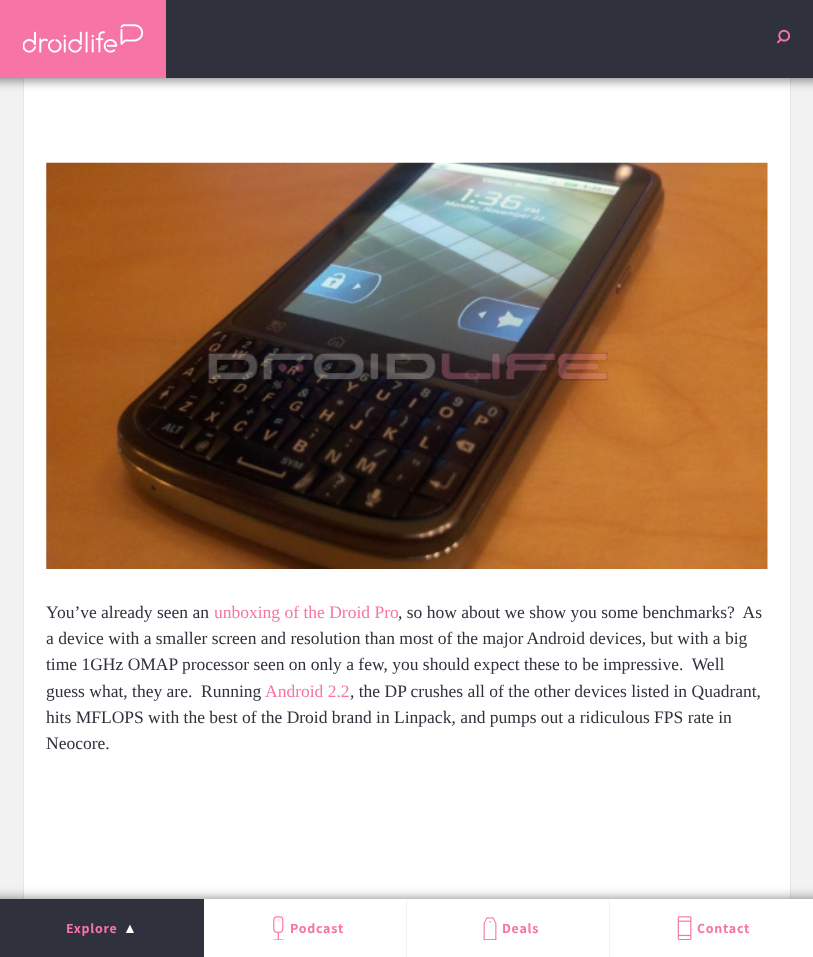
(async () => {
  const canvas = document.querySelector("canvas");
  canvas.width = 813;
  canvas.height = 957;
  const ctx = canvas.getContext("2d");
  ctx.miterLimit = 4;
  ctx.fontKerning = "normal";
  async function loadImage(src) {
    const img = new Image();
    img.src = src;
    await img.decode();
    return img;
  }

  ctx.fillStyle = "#f2f2f3";
  ctx.fillRect(0, 0, 813, 957);
  ctx.fillStyle = "#ffffff";
  ctx.fillRect(24, 78, 766, 821);
  ctx.strokeStyle = "#e5e5e6";
  ctx.strokeRect(23.5, -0.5, 767, 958);
  ctx.drawImage(await loadImage("img/1.png"), 46, 162, 722, 407);
  ctx.fillStyle = "rgba(0, 0, 0, 0.5)";
  ctx.filter = "blur(6px)";
  ctx.beginPath();
  ctx.rect(-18, -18, 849, 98);
  ctx.fill();
  ctx.filter = "none";
  ctx.fillStyle = "#f674a6";
  ctx.fillRect(0, 0, 166, 78);
  ctx.drawImage(await loadImage("img/2.png"), 23, 24, 121, 29);
  ctx.fillStyle = "#2f313c";
  ctx.fillRect(166, 0, 647, 78);
  ctx.drawImage(await loadImage("img/3.png"), 776, 29, 15, 15);
  ctx.fillStyle = "rgba(0, 0, 0, 0.5)";
  ctx.filter = "blur(6px)";
  ctx.beginPath();
  ctx.rect(-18, 899, 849, 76);
  ctx.fill();
  ctx.filter = "none";
  for (const [x, y, w, h, color] of [
    [204, 899, 609, 58, "#ffffff"],
    [0, 899, 204, 58, "#2f313c"],
    [406, 899, 1, 58, "#f2f2f3"],
  ]) {
    ctx.fillStyle = color;
    ctx.fillRect(x, y, w, h);
  }
  ctx.drawImage(await loadImage("img/4.png"), 273, 916, 11, 24);
  ctx.fillRect(609, 899, 1, 58);
  ctx.drawImage(await loadImage("img/5.png"), 483, 917, 14, 23);
  ctx.drawImage(await loadImage("img/6.png"), 677, 916, 15, 24);
  ctx.font = "17.5px Liberation Serif";
  ctx.fillStyle = "#2f313c";
  ctx.fillText("You’ve already seen an", 46, 618);
  ctx.fillStyle = "#f674a6";
  ctx.fillText("unboxing of the Droid Pro", 214, 618);
  ctx.fillStyle = "#2f313c";
  for (const [text, x, y] of [
    [", so how about we show you some benchmarks?  As", 398, 618],
    ["a device with a smaller screen and resolution than most of the major Android devices, but with a big", 46, 644],
    ["time 1GHz OMAP processor seen on only a few, you should expect these to be impressive.  Well", 46, 670],
    ["guess what, they are.  Running", 46, 697],
  ]) {
    ctx.fillText(text, x, y);
  }
  ctx.fillStyle = "#f674a6";
  ctx.fillText("Android 2.2", 265, 697);
  ctx.fillStyle = "#2f313c";
  for (const [text, x, y] of [
    [", the DP crushes all of the other devices listed in Quadrant,", 350, 697],
    ["hits MFLOPS with the best of the Droid brand in Linpack, and pumps out a ridiculous FPS rate in", 46, 723],
    ["Neocore.", 46, 749],
  ]) {
    ctx.fillText(text, x, y);
  }
  ctx.letterSpacing = "0.75px";
  ctx.font = "200 14px Assistant";
  ctx.fillStyle = "#f674a6";
  ctx.fillText("Explore", 66, 933);
  ctx.font = "14px Liberation Sans";
  ctx.fillStyle = "#ffffff";
  ctx.fillText("▲", 123, 933);
  ctx.font = "200 14px Assistant";
  ctx.fillStyle = "#f674a6";
  for (const [text, x, y] of [
    ["Podcast", 290, 933],
    ["Deals", 502, 933],
    ["Contact", 697, 933],
  ]) {
    ctx.fillText(text, x, y);
  }
})();
